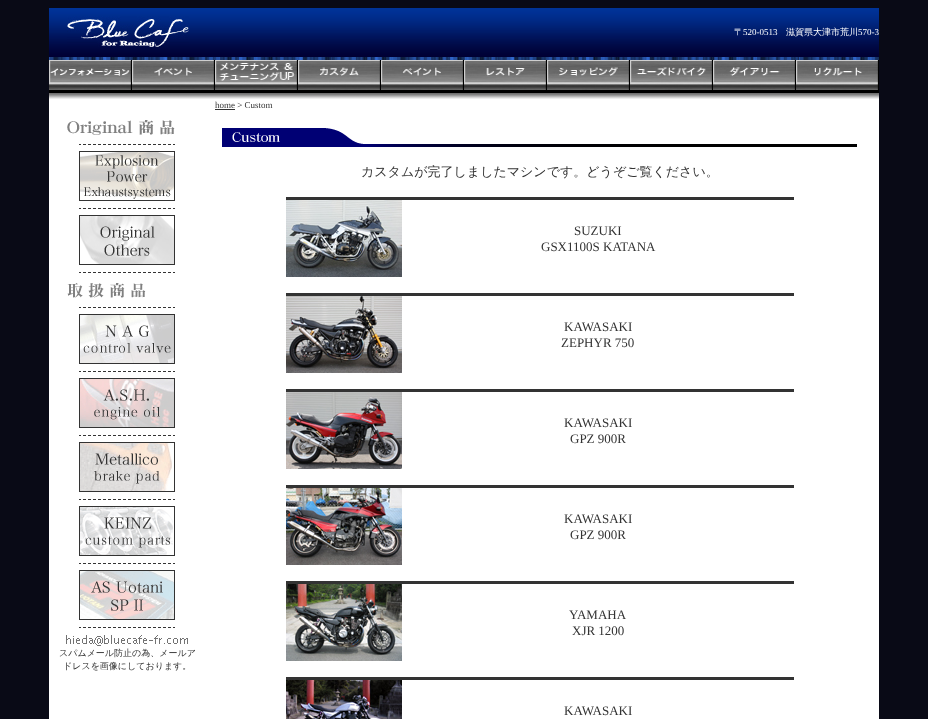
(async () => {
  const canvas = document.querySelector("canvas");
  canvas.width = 928;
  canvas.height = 719;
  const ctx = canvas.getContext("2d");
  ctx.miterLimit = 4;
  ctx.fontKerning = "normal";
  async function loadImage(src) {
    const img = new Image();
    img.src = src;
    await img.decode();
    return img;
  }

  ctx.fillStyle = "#090a16";
  ctx.fillRect(0, 0, 928, 719);
  ctx.fillStyle = "#ffffff";
  ctx.fillRect(49, 99, 830, 620);
  ctx.drawImage(await loadImage("img/1.png"), 49, 8, 830, 49);
  ctx.drawImage(await loadImage("img/2.png"), 67, 16, 122, 31);
  ctx.drawImage(await loadImage("img/3.png"), 49, 57, 830, 3);
  ctx.drawImage(await loadImage("img/4.png"), 49, 60, 83, 33);
  ctx.drawImage(await loadImage("img/5.png"), 132, 60, 83, 33);
  ctx.drawImage(await loadImage("img/6.png"), 215, 60, 83, 33);
  ctx.drawImage(await loadImage("img/7.png"), 298, 60, 83, 33);
  ctx.drawImage(await loadImage("img/8.png"), 381, 60, 83, 33);
  ctx.drawImage(await loadImage("img/9.png"), 464, 60, 83, 33);
  ctx.drawImage(await loadImage("img/10.png"), 547, 60, 83, 33);
  ctx.drawImage(await loadImage("img/11.png"), 630, 60, 83, 33);
  ctx.drawImage(await loadImage("img/12.png"), 713, 60, 83, 33);
  ctx.drawImage(await loadImage("img/13.png"), 796, 60, 83, 33);
  ctx.drawImage(await loadImage("img/14.png"), 49, 93, 830, 6);
  ctx.drawImage(await loadImage("img/15.png"), 67, 120, 108, 15);
  ctx.drawImage(await loadImage("img/16.png"), 79, 144, 96, 1);
  ctx.drawImage(await loadImage("img/17.png"), 79, 151, 96, 50);
  ctx.drawImage(await loadImage("img/16.png"), 79, 208, 96, 1);
  ctx.drawImage(await loadImage("img/18.png"), 79, 215, 96, 50);
  ctx.drawImage(await loadImage("img/16.png"), 79, 272, 96, 1);
  ctx.drawImage(await loadImage("img/19.png"), 67, 283, 79, 15);
  ctx.drawImage(await loadImage("img/16.png"), 79, 307, 96, 1);
  ctx.drawImage(await loadImage("img/20.png"), 79, 314, 96, 50);
  ctx.drawImage(await loadImage("img/16.png"), 79, 371, 96, 1);
  ctx.drawImage(await loadImage("img/21.png"), 79, 378, 96, 50);
  ctx.drawImage(await loadImage("img/16.png"), 79, 435, 96, 1);
  ctx.drawImage(await loadImage("img/22.png"), 79, 442, 96, 50);
  ctx.drawImage(await loadImage("img/16.png"), 79, 499, 96, 1);
  ctx.drawImage(await loadImage("img/23.png"), 79, 506, 96, 50);
  ctx.drawImage(await loadImage("img/16.png"), 79, 563, 96, 1);
  ctx.drawImage(await loadImage("img/24.png"), 79, 570, 96, 50);
  ctx.drawImage(await loadImage("img/16.png"), 79, 627, 96, 1);
  ctx.drawImage(await loadImage("img/25.png"), 66, 635, 122, 11);
  ctx.fillStyle = "#333333";
  ctx.fillRect(215, 109, 20, 1);
  ctx.drawImage(await loadImage("img/26.png"), 222, 128, 635, 19);
  ctx.fillRect(286, 197, 508, 3);
  ctx.drawImage(await loadImage("img/27.png"), 286, 200, 116, 77);
  ctx.fillRect(286, 293, 508, 3);
  ctx.drawImage(await loadImage("img/28.png"), 286, 296, 116, 77);
  ctx.fillRect(286, 389, 508, 3);
  ctx.drawImage(await loadImage("img/29.png"), 286, 392, 116, 77);
  ctx.fillRect(286, 485, 508, 3);
  ctx.drawImage(await loadImage("img/30.png"), 286, 488, 116, 77);
  ctx.fillRect(286, 581, 508, 3);
  ctx.drawImage(await loadImage("img/31.png"), 286, 584, 116, 77);
  ctx.fillRect(286, 677, 508, 3);
  ctx.drawImage(await loadImage("img/32.png"), 286, 680, 116, 39);
  ctx.font = "500 9px WenQuanYi Zen Hei";
  ctx.fillStyle = "#ffffff";
  ctx.fillText("〒", 734, 35);
  ctx.font = "9px Liberation Serif";
  ctx.fillText("520-0513", 743, 35);
  ctx.font = "500 9px WenQuanYi Zen Hei";
  ctx.fillText("滋賀県大津市荒川", 786, 35);
  ctx.font = "9px Liberation Serif";
  ctx.fillText("570-3", 858, 35);
  ctx.font = "500 9px WenQuanYi Zen Hei";
  ctx.fillStyle = "#333333";
  ctx.fillText("スパムメール防止の為、メールア", 59, 656);
  ctx.fillText("ドレスを画像にしております。", 63, 669);
  ctx.font = "9px Liberation Serif";
  ctx.fillText("home > Custom", 215, 108);
  ctx.font = "500 13px WenQuanYi Zen Hei";
  ctx.fillText("カスタムが完了しましたマシンです。どうぞご覧ください。", 361, 176);
  ctx.font = "13px Liberation Serif";
  for (const [text, x, y] of [
    ["SUZUKI", 574, 235],
    ["GSX1100S KATANA", 541, 251],
    ["KAWASAKI", 564, 331],
    ["ZEPHYR 750", 561, 347],
    ["KAWASAKI", 564, 427],
    ["GPZ 900R", 570, 443],
    ["KAWASAKI", 564, 523],
    ["GPZ 900R", 570, 539],
    ["YAMAHA", 569, 619],
    ["XJR 1200", 572, 635],
    ["KAWASAKI", 564, 715],
  ]) {
    ctx.fillText(text, x, y);
  }
})();
